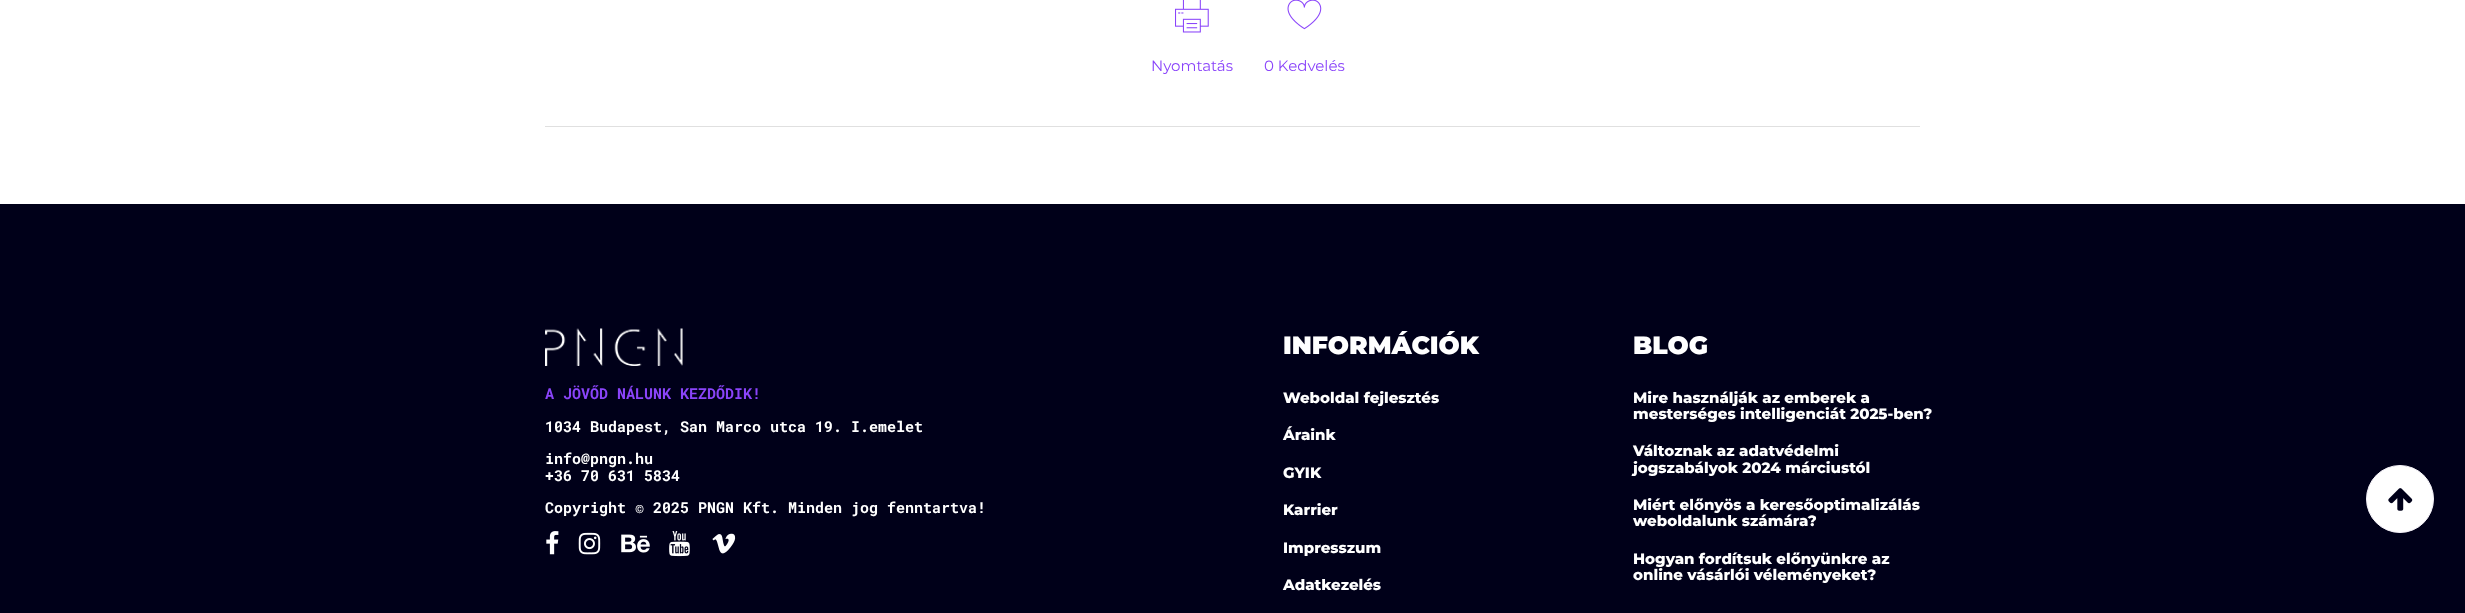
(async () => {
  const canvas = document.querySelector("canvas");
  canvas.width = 2465;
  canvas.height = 613;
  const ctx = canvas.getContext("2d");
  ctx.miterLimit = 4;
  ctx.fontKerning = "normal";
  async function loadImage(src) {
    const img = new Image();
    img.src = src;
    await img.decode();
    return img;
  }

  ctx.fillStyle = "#ffffff";
  ctx.fillRect(0, 0, 2465, 613);
  ctx.fillStyle = "#e0e0e0";
  ctx.fillRect(545, 126, 1375, 1);
  ctx.drawImage(await loadImage("img/1.png"), 1175, 0, 34, 33);
  ctx.drawImage(await loadImage("img/2.png"), 1287, 0, 35, 30);
  ctx.fillStyle = "#000019";
  ctx.fillRect(0, 204, 2465, 409);
  ctx.drawImage(await loadImage("img/3.png"), 545, 328, 138, 38);
  ctx.drawImage(await loadImage("img/4.png"), 546, 531, 13, 24);
  ctx.drawImage(await loadImage("img/5.png"), 578, 532, 23, 23);
  ctx.drawImage(await loadImage("img/6.png"), 621, 534, 29, 19);
  ctx.drawImage(await loadImage("img/7.png"), 669, 531, 21, 26);
  ctx.drawImage(await loadImage("img/8.png"), 712, 533, 24, 21);
  ctx.fillStyle = "#ffffff";
  ctx.beginPath();
  ctx.arc(2400, 499, 33.5, 0, Math.PI * 2);
  ctx.fill();
  ctx.strokeStyle = "#f5f2f9";
  ctx.stroke();
  ctx.drawImage(await loadImage("img/9.png"), 2388, 488, 25, 23);
  ctx.font = "15px Montserrat";
  ctx.fillStyle = "#8a44fa";
  ctx.fillText("Nyomtatás", 1151, 71);
  ctx.fillText("0 Kedvelés", 1264, 71);
  ctx.font = "bold 15px Roboto Mono";
  ctx.fillText("A JÖVŐD NÁLUNK KEZDŐDIK!", 545, 399);
  ctx.fillStyle = "#ffffff";
  for (const [text, x, y] of [
    ["1034 Budapest, San Marco utca 19. I.emelet", 545, 432],
    ["info@pngn.hu", 545, 464],
    ["+36 70 631 5834", 545, 481],
    ["Copyright © 2025 PNGN Kft. Minden jog fenntartva!", 545, 513],
  ]) {
    ctx.fillText(text, x, y);
  }
  ctx.font = "900 25px Montserrat";
  ctx.fillText("INFORMÁCIÓK", 1283, 354);
  ctx.font = "800 15px Montserrat";
  for (const [text, x, y] of [
    ["Weboldal fejlesztés", 1283, 403],
    ["Áraink", 1283, 440],
    ["GYIK", 1283, 478],
    ["Karrier", 1283, 515],
    ["Impresszum", 1283, 553],
    ["Adatkezelés", 1283, 590],
  ]) {
    ctx.fillText(text, x, y);
  }
  ctx.font = "900 25px Montserrat";
  ctx.fillText("BLOG", 1633, 354);
  ctx.font = "800 15px Montserrat";
  for (const [text, x, y] of [
    ["Mire használják az emberek a", 1633, 403],
    ["mesterséges intelligenciát 2025-ben?", 1633, 419],
    ["Változnak az adatvédelmi", 1633, 456],
    ["jogszabályok 2024 márciustól", 1633, 473],
    ["Miért előnyös a keresőoptimalizálás", 1633, 510],
    ["weboldalunk számára?", 1633, 526],
    ["Hogyan fordítsuk előnyünkre az", 1633, 564],
    ["online vásárlói véleményeket?", 1633, 580],
  ]) {
    ctx.fillText(text, x, y);
  }
})();
